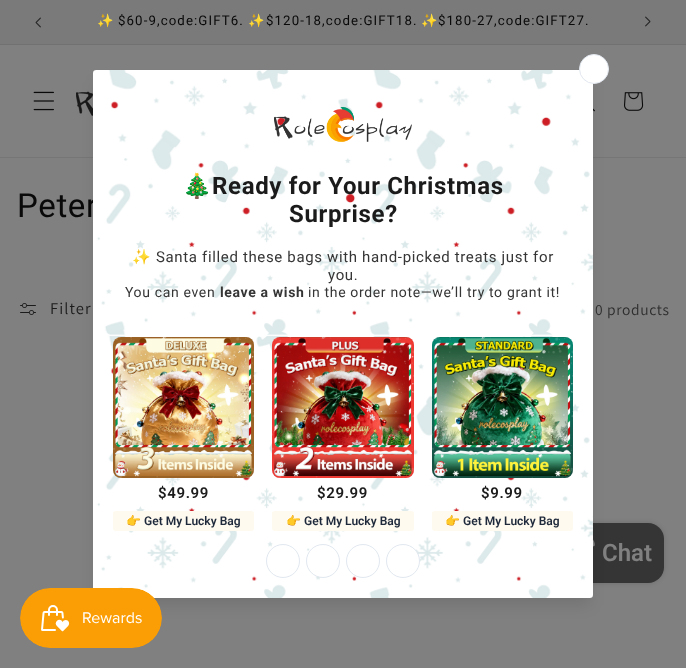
(async () => {
  const canvas = document.querySelector("canvas");
  canvas.width = 686;
  canvas.height = 668;
  const ctx = canvas.getContext("2d");
  ctx.miterLimit = 4;
  ctx.fontKerning = "normal";
  async function loadImage(src) {
    const img = new Image();
    img.src = src;
    await img.decode();
    return img;
  }

  ctx.fillStyle = "#808080";
  ctx.fillRect(0, 0, 686, 668);
  ctx.fillStyle = "#7a7a7a";
  ctx.fillRect(0, 0, 686, 44);
  ctx.fillStyle = "#717171";
  ctx.fillRect(0, 44, 686, 1);
  ctx.drawImage(await loadImage("img/1.png"), 35, 17, 6, 11);
  ctx.drawImage(await loadImage("img/2.png"), 645, 16, 6, 11);
  ctx.fillStyle = "#767676";
  ctx.fillRect(0, 157, 686, 1);
  ctx.drawImage(await loadImage("img/3.png"), 33, 91, 21, 20);
  ctx.drawImage(await loadImage("img/4.png"), 76, 91, 17, 25);
  ctx.drawImage(await loadImage("img/5.png"), 593, 108, 2, 4);
  ctx.drawImage(await loadImage("img/6.png"), 624, 92, 20, 19);
  ctx.fillStyle = "rgba(0, 0, 0, 0.15)";
  ctx.filter = "blur(2.5px)";
  ctx.beginPath();
  ctx.roundRect(551, 523, 113, 60, 16);
  ctx.fill();
  ctx.filter = "none";
  ctx.fillStyle = "#353535";
  ctx.beginPath();
  ctx.roundRect(551, 523, 113, 60, 16);
  ctx.fill();
  ctx.drawImage(await loadImage("img/13.png"), 593, 539, 2, 8);
  ctx.fillStyle = "rgba(0, 0, 0, 0.1)";
  ctx.filter = "blur(7.5px)";
  ctx.beginPath();
  ctx.roundRect(96, 83, 494, 522, 0.5);
  ctx.fill();
  ctx.filter = "none";
  ctx.drawImage(await loadImage("img/12.png"), 20, 303, 16, 12);
  ctx.letterSpacing = "1.1px";
  ctx.font = "13.25px Noto Color Emoji";
  ctx.fillStyle = "#090909";
  ctx.fillText("✨", 97, 25);
  ctx.font = "13.25px Roboto";
  ctx.fillText("$60-9,code:GIFT6.", 118, 25);
  ctx.font = "13.25px Noto Color Emoji";
  ctx.fillText("✨", 248, 25);
  ctx.font = "13.25px Roboto";
  ctx.fillText("$120-18,code:GIFT18.", 266, 25);
  ctx.font = "13.25px Noto Color Emoji";
  ctx.fillText("✨", 421, 25);
  ctx.font = "13.25px Roboto";
  ctx.fillText("$180-27,code:GIFT27.", 438, 25);
  ctx.letterSpacing = "0.65px";
  ctx.font = "33px Roboto";
  ctx.fillText("Peter", 17, 217);
  ctx.drawImage(await loadImage("img/7.png"), 93, 70, 500, 528);
  ctx.fillStyle = "#ffffff";
  ctx.beginPath();
  ctx.arc(594, 69, 14.5, 0, Math.PI * 2);
  ctx.fill();
  ctx.strokeStyle = "#e2e8f0";
  ctx.stroke();
  ctx.beginPath();
  ctx.arc(403, 561, 16.5, 0, Math.PI * 2);
  ctx.fill();
  ctx.stroke();
  ctx.beginPath();
  ctx.arc(363, 561, 16.5, 0, Math.PI * 2);
  ctx.fill();
  ctx.stroke();
  ctx.beginPath();
  ctx.arc(323, 561, 16.5, 0, Math.PI * 2);
  ctx.fill();
  ctx.stroke();
  ctx.beginPath();
  ctx.arc(283, 561, 16.5, 0, Math.PI * 2);
  ctx.stroke();
  ctx.fillStyle = "#fffaef";
  ctx.beginPath();
  ctx.roundRect(432, 511, 141, 20, 3);
  ctx.fill();
  ctx.letterSpacing = "0px";
  ctx.font = "600 12px Roboto";
  ctx.fillStyle = "#1e293b";
  ctx.fillText("Get My Lucky Bag", 463, 525);
  ctx.font = "bold 12px Noto Color Emoji";
  ctx.fillText("👉", 445, 525);
  ctx.letterSpacing = "0.65px";
  ctx.font = "600 15px Roboto";
  ctx.fillStyle = "#1b1b1b";
  ctx.fillText("$9.99", 481, 498);
  ctx.fillStyle = "#e2e8f0";
  ctx.beginPath();
  ctx.roundRect(432, 337, 141, 141, 8);
  ctx.fill();
  ctx.drawImage(await loadImage("img/11.png"), 432, 337, 141, 141);
  ctx.fillStyle = "#fffaef";
  ctx.beginPath();
  ctx.roundRect(272, 511, 142, 20, 3);
  ctx.fill();
  ctx.letterSpacing = "0px";
  ctx.font = "600 12px Roboto";
  ctx.fillStyle = "#1e293b";
  ctx.fillText("Get My Lucky Bag", 304, 525);
  ctx.font = "bold 12px Noto Color Emoji";
  ctx.fillText("👉", 286, 525);
  ctx.letterSpacing = "0.65px";
  ctx.font = "600 15px Roboto";
  ctx.fillStyle = "#1b1b1b";
  ctx.fillText("$29.99", 317, 498);
  ctx.fillStyle = "#e2e8f0";
  ctx.beginPath();
  ctx.roundRect(272, 337, 142, 141, 8);
  ctx.fill();
  ctx.drawImage(await loadImage("img/10.png"), 272, 337, 142, 141);
  ctx.fillStyle = "#fffaef";
  ctx.beginPath();
  ctx.roundRect(113, 511, 141, 20, 3);
  ctx.fill();
  ctx.letterSpacing = "0px";
  ctx.font = "600 12px Roboto";
  ctx.fillStyle = "#1e293b";
  ctx.fillText("Get My Lucky Bag", 144, 525);
  ctx.font = "bold 12px Noto Color Emoji";
  ctx.fillText("👉", 126, 525);
  ctx.letterSpacing = "0.65px";
  ctx.font = "600 15px Roboto";
  ctx.fillStyle = "#1b1b1b";
  ctx.fillText("$49.99", 158, 498);
  ctx.fillStyle = "#e2e8f0";
  ctx.beginPath();
  ctx.roundRect(113, 337, 141, 141, 8);
  ctx.fill();
  ctx.drawImage(await loadImage("img/9.png"), 113, 337, 141, 141);
  ctx.font = "14px Roboto";
  ctx.fillStyle = "#363636";
  ctx.fillText("in the order note—we’ll try to grant it!", 308, 297);
  ctx.font = "bold 14px Roboto";
  ctx.fillText("leave a wish", 220, 297);
  ctx.font = "14px Roboto";
  ctx.fillText("You can even", 125, 297);
  ctx.font = "15px Roboto";
  ctx.fillText("you.", 328, 280);
  ctx.fillText("Santa filled these bags with hand-picked treats just for", 156, 262);
  ctx.font = "15px Noto Color Emoji";
  ctx.fillText("✨", 132, 262);
  ctx.font = "bold 24px Roboto";
  ctx.fillStyle = "#1b1b1b";
  ctx.fillText("Surprise?", 289, 222);
  ctx.fillText("Ready for Your Christmas", 212, 194);
  ctx.font = "bold 24px Noto Color Emoji";
  ctx.fillText("🎄", 182, 194);
  ctx.drawImage(await loadImage("img/8.png"), 274, 107, 138, 35);
  ctx.letterSpacing = "1.1px";
  ctx.font = "16.5px Assistant";
  ctx.fillText("Filter", 50, 314);
  ctx.letterSpacing = "0.65px";
  ctx.font = "15.5px Assistant";
  ctx.fillStyle = "#2d2d2d";
  ctx.fillText("0 products", 595, 315);
  ctx.letterSpacing = "0px";
  ctx.font = "600 24px Roboto";
  ctx.fillStyle = "#808080";
  ctx.fillText("Chat", 602, 561);
  ctx.drawImage(await loadImage("img/14.png"), 20, 588, 142, 60);
})();
